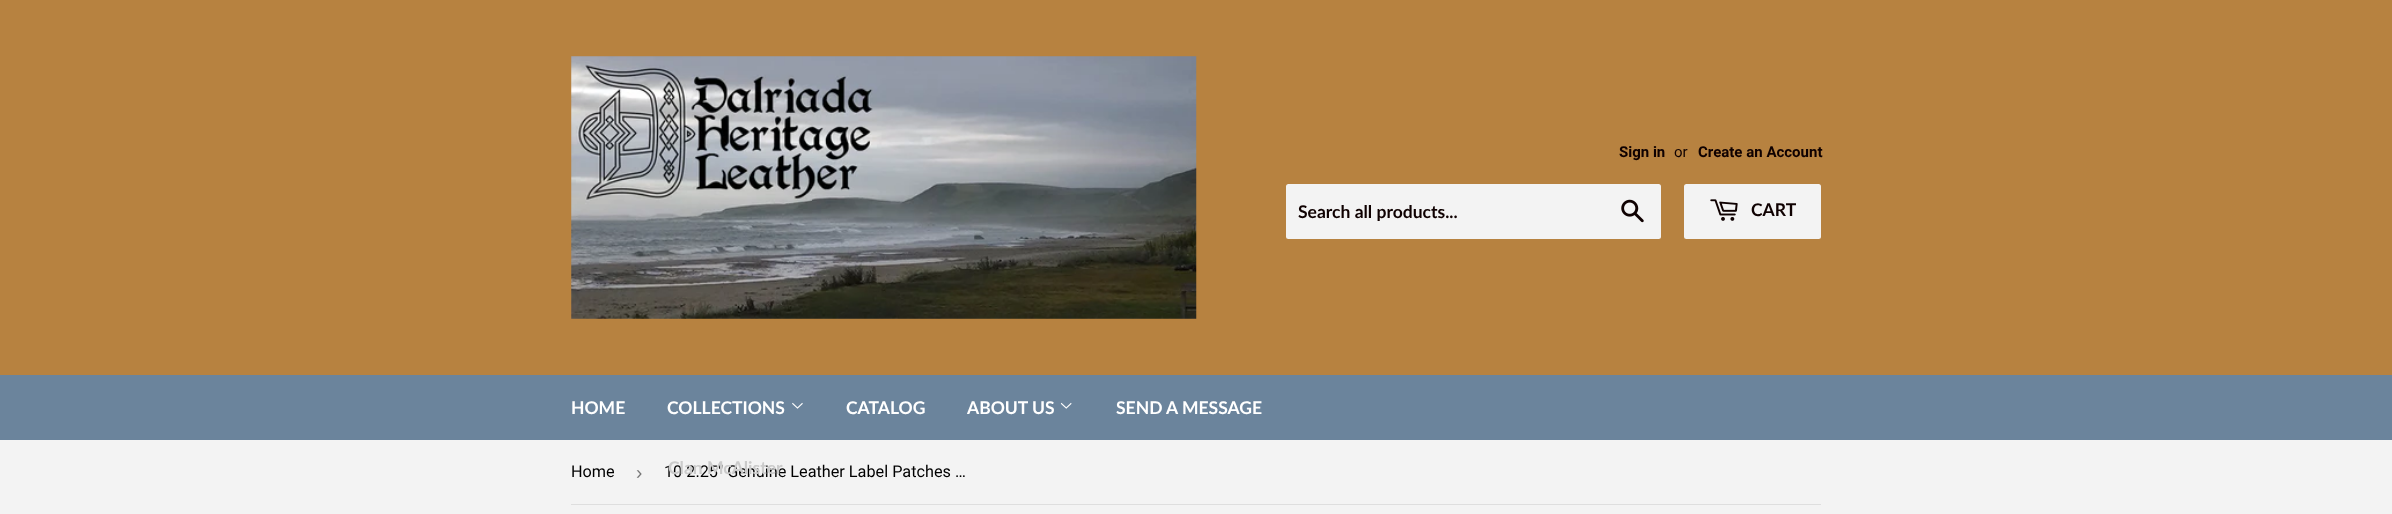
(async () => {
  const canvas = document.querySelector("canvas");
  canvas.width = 2392;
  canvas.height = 514;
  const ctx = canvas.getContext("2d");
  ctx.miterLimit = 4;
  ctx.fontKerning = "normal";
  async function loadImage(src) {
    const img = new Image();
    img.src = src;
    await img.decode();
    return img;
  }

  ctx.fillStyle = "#f3f3f3";
  ctx.fillRect(0, 0, 2392, 514);
  ctx.fillStyle = "#b78240";
  ctx.fillRect(0, 0, 2392, 375);
  ctx.drawImage(await loadImage("img/1.png"), 571, 56, 626, 263);
  ctx.fillStyle = "#f3f3f3";
  ctx.beginPath();
  ctx.roundRect(1286, 184, 375, 55, 2.5);
  ctx.fill();
  ctx.drawImage(await loadImage("img/2.png"), 1621, 199, 23, 24);
  ctx.beginPath();
  ctx.roundRect(1684, 184, 137, 55, 2.5);
  ctx.fill();
  ctx.drawImage(await loadImage("img/3.png"), 1710, 199, 28, 22);
  ctx.fillStyle = "#6b849c";
  ctx.fillRect(0, 375, 2392, 65);
  ctx.drawImage(await loadImage("img/4.png"), 792, 402, 11, 7);
  ctx.drawImage(await loadImage("img/5.png"), 1060, 402, 12, 7);
  ctx.fillStyle = "#dedede";
  ctx.fillRect(571, 504, 1250, 1);
  ctx.font = "bold 15px Roboto";
  ctx.fillStyle = "#0f0101";
  ctx.fillText("Sign in", 1619, 157);
  ctx.font = "15px Roboto";
  ctx.fillText("or", 1674, 157);
  ctx.font = "bold 15px Roboto";
  ctx.fillText("Create an Account", 1698, 157);
  ctx.font = "bold 17.5px Lato";
  ctx.fillText("Search all products...", 1298, 218);
  ctx.fillText("CART", 1751, 216);
  ctx.fillStyle = "#ffffff";
  for (const [text, x, y] of [
    ["HOME", 571, 414],
    ["COLLECTIONS", 667, 414],
    ["CATALOG", 846, 414],
    ["ABOUT US", 967, 414],
    ["SEND A MESSAGE", 1116, 414],
  ]) {
    ctx.fillText(text, x, y);
  }
  ctx.font = "16.25px Roboto";
  ctx.fillStyle = "#000000";
  ctx.fillText("Home", 571, 477);
  ctx.font = "19px Liberation Sans";
  ctx.fillStyle = "#767676";
  ctx.fillText("›", 636, 479);
  ctx.font = "16.25px Roboto";
  ctx.fillStyle = "#000000";
  ctx.fillText("10 2.25\" Genuine Leather Label Patches …", 664, 477);
  ctx.font = "bold 17.5px Lato";
  ctx.fillStyle = "#cbcbcb";
  ctx.fillText("Clan McAlister", 668, 474);
})();
